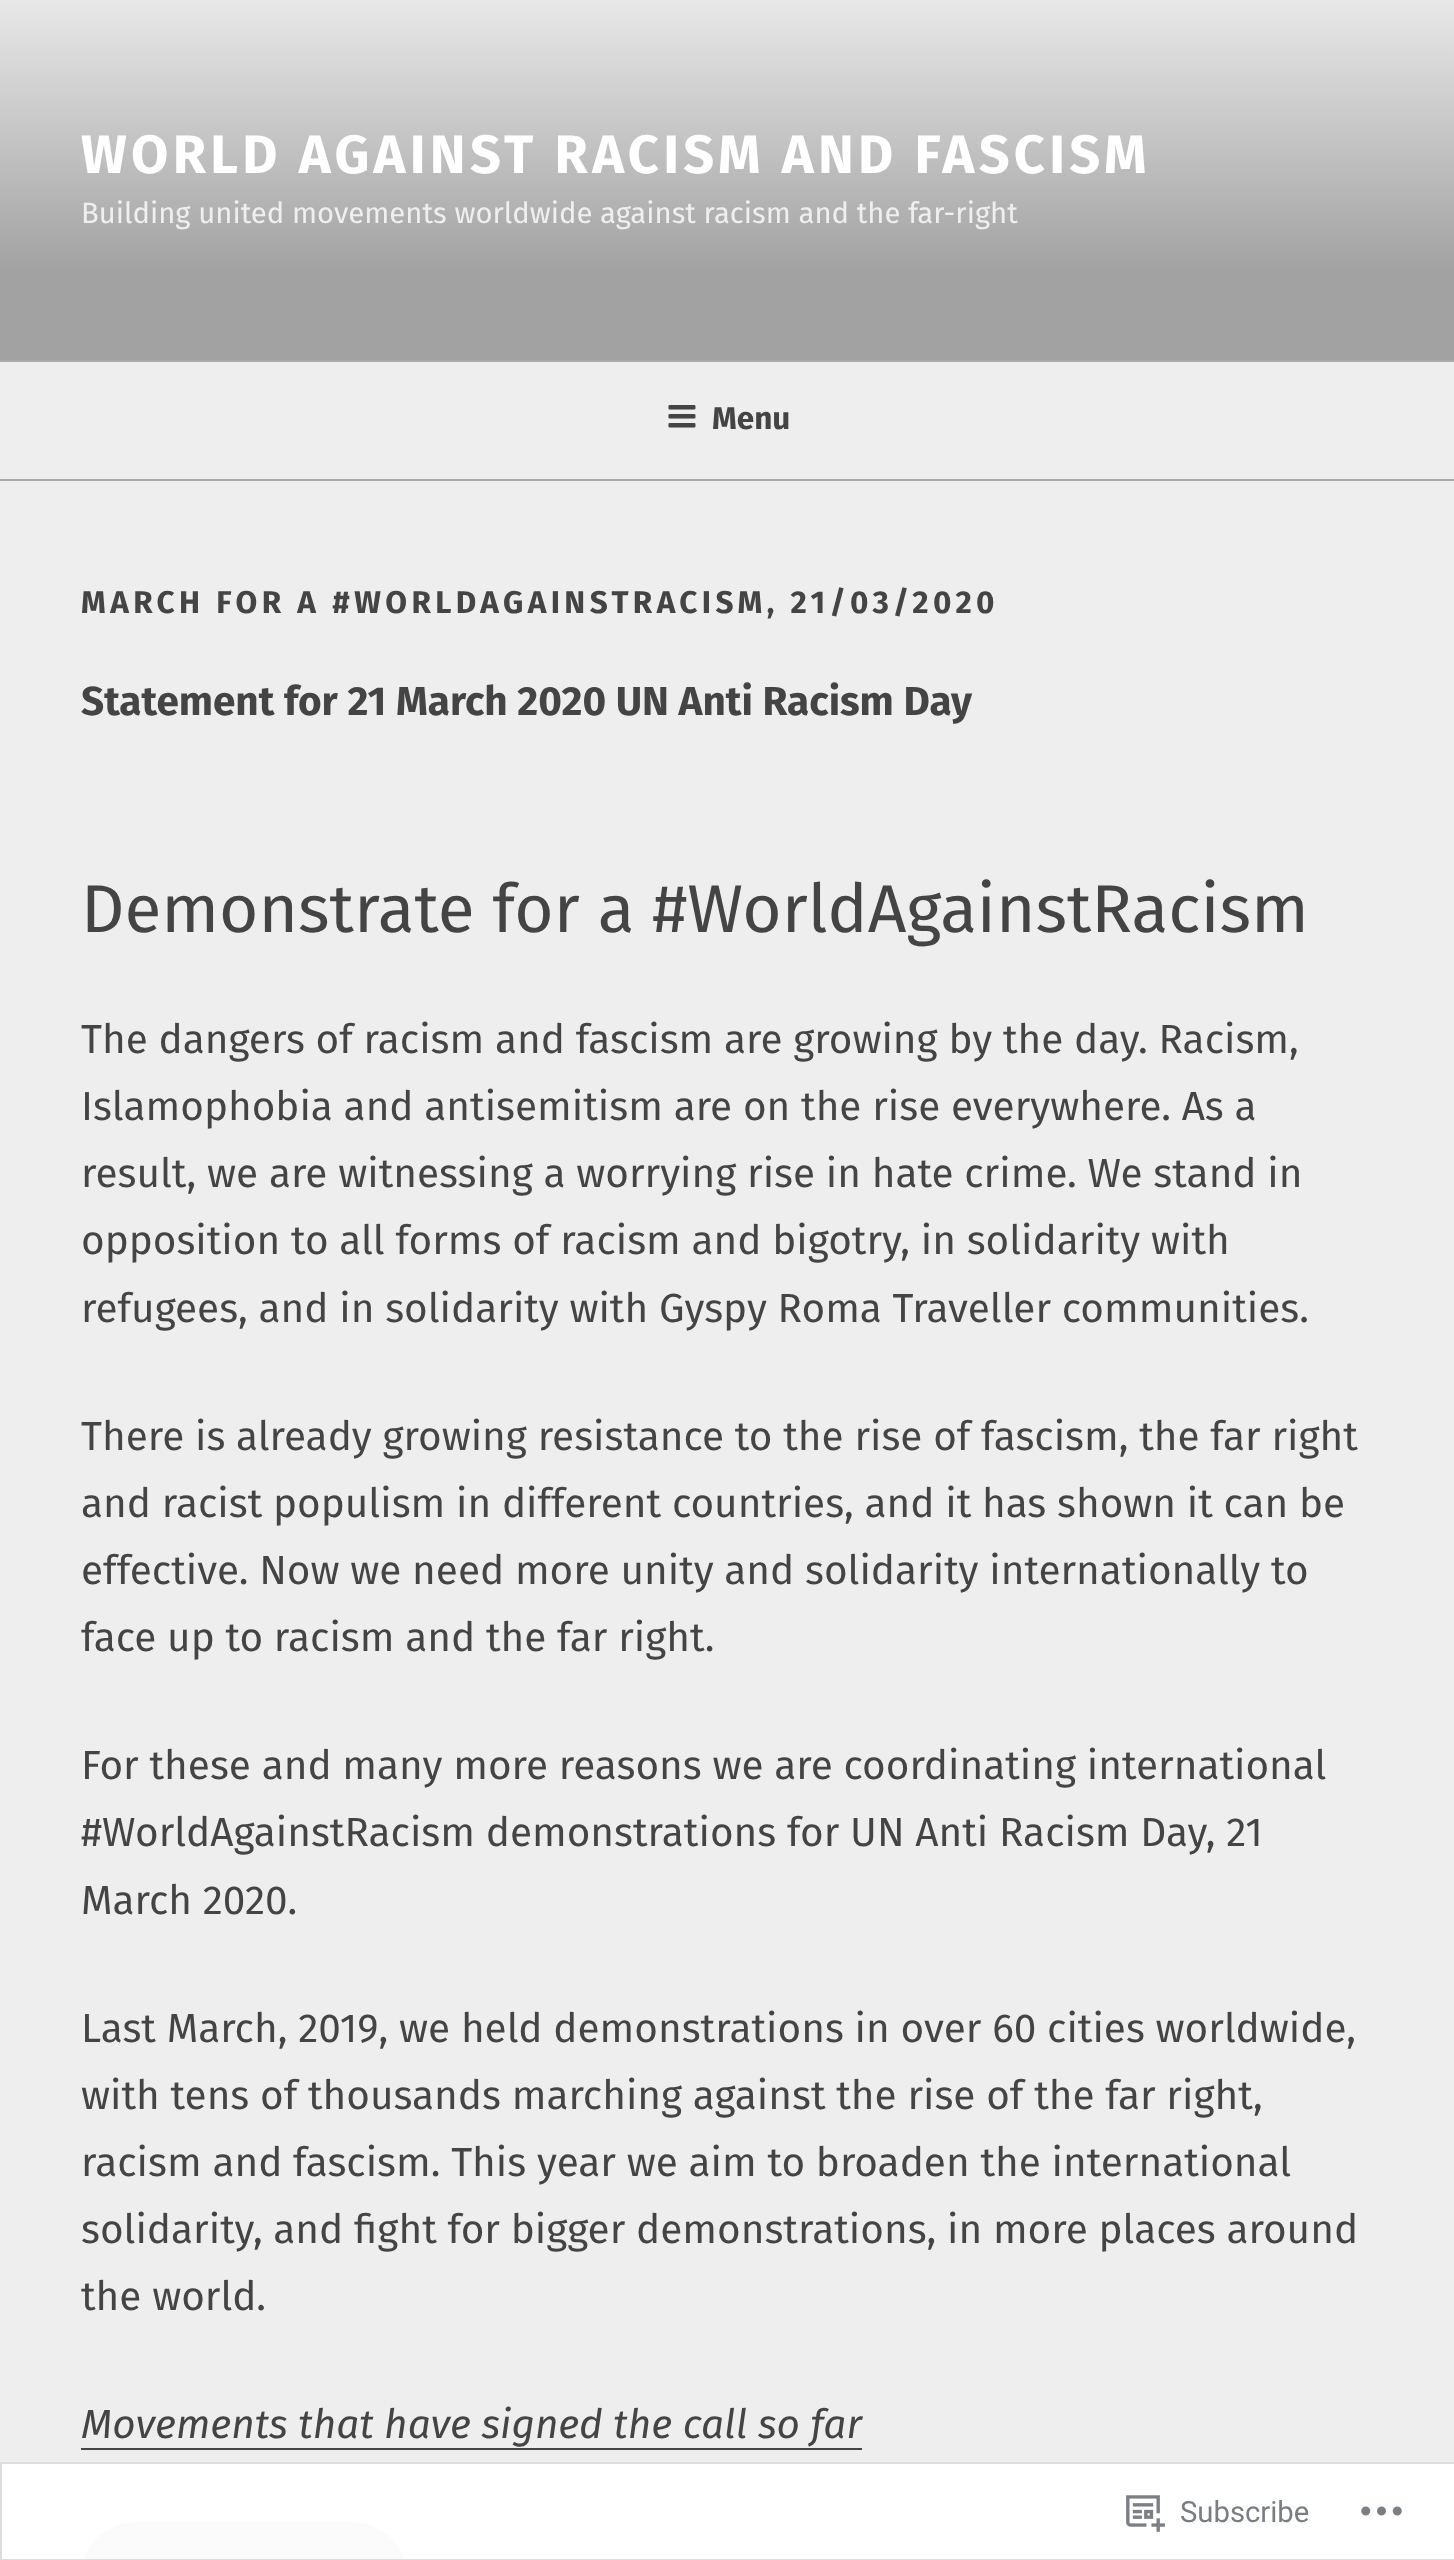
(async () => {
  const canvas = document.querySelector("canvas");
  canvas.width = 1454;
  canvas.height = 2560;
  const ctx = canvas.getContext("2d");
  ctx.miterLimit = 4;
  ctx.fontKerning = "normal";
  async function loadImage(src) {
    const img = new Image();
    img.src = src;
    await img.decode();
    return img;
  }
  let gradient;

  ctx.fillStyle = "#eeeeee";
  ctx.fillRect(0, 0, 1454, 2560);
  ctx.fillStyle = "#ffffff";
  ctx.fillRect(0, 2462, 1454, 98);
  gradient = ctx.createLinearGradient(728, 0, 728, 360);
  gradient.addColorStop(0, "#e8e8e8");
  gradient.addColorStop(0.75, "#a2a2a2");
  gradient.addColorStop(1, "#a2a2a2");
  ctx.fillStyle = gradient;
  ctx.fillRect(0, 0, 1454, 360);
  ctx.fillStyle = "#aaaaaa";
  ctx.fillRect(0, 360, 1454, 2);
  ctx.fillRect(0, 479, 1454, 2);
  ctx.drawImage(await loadImage("img/1.png"), 668, 405, 28, 23);
  ctx.fillStyle = "#444444";
  ctx.fillRect(81, 2448, 781, 2);
  ctx.fillStyle = "#fbfbfb";
  ctx.beginPath();
  ctx.roundRect(81, 2522, 326, 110, 72);
  ctx.fill();
  ctx.strokeStyle = "rgba(220, 220, 222, 0.98)";
  ctx.lineWidth = 2;
  ctx.strokeRect(1, 2463, 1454, 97);
  ctx.drawImage(await loadImage("img/2.png"), 1126, 2495, 39, 37);
  ctx.drawImage(await loadImage("img/3.png"), 1361, 2506, 41, 10);
  ctx.letterSpacing = "4.3px";
  ctx.font = "bold 54px Fira Sans";
  ctx.fillStyle = "#ffffff";
  ctx.fillText("WORLD AGAINST RACISM AND FASCISM", 81, 173);
  ctx.letterSpacing = "0px";
  ctx.font = "29.25px Fira Sans";
  ctx.fillStyle = "#efefef";
  ctx.fillText("Building united movements worldwide against racism and the far-right", 81, 223);
  ctx.font = "bold 31.5px Fira Sans";
  ctx.fillStyle = "#444444";
  ctx.fillText("Menu", 712, 429);
  ctx.letterSpacing = "4.4px";
  ctx.fillText("MARCH FOR A #WORLDAGAINSTRACISM, 21/03/2020", 81, 613);
  ctx.letterSpacing = "0px";
  ctx.font = "bold 40.5px Fira Sans";
  ctx.fillText("Statement for 21 March 2020 UN Anti Racism Day", 81, 715);
  ctx.font = "67.5px Fira Sans";
  ctx.fillText("Demonstrate for a #WorldAgainstRacism", 81, 932);
  ctx.font = "40.5px Fira Sans";
  for (const [text, x, y] of [
    ["The dangers of racism and fascism are growing by the day. Racism,", 81, 1053],
    ["Islamophobia and antisemitism are on the rise everywhere. As a", 81, 1120],
    ["result, we are witnessing a worrying rise in hate crime. We stand in", 81, 1187],
    ["opposition to all forms of racism and bigotry, in solidarity with", 81, 1254],
    ["refugees, and in solidarity with Gyspy Roma Traveller communities.", 81, 1322],
    ["There is already growing resistance to the rise of fascism, the far right", 81, 1450],
    ["and racist populism in different countries, and it has shown it can be", 81, 1517],
    ["effective. Now we need more unity and solidarity internationally to", 81, 1584],
    ["face up to racism and the far right.", 81, 1651],
    ["For these and many more reasons we are coordinating international", 81, 1779],
    ["#WorldAgainstRacism demonstrations for UN Anti Racism Day, 21", 81, 1846],
    ["March 2020.", 81, 1914],
    ["Last March, 2019, we held demonstrations in over 60 cities worldwide,", 81, 2042],
    ["with tens of thousands marching against the rise of the far right,", 81, 2109],
    ["racism and fascism. This year we aim to broaden the international", 81, 2176],
    ["solidarity, and fight for bigger demonstrations, in more places around", 81, 2243],
    ["the world.", 81, 2310],
  ]) {
    ctx.fillText(text, x, y);
  }
  ctx.font = "italic 40.5px Fira Sans";
  ctx.fillText("Movements that have signed the call so far", 81, 2438);
  ctx.font = "29.25px Roboto";
  ctx.fillStyle = "#7a7e84";
  ctx.fillText("Subscribe", 1180, 2522);
})();
